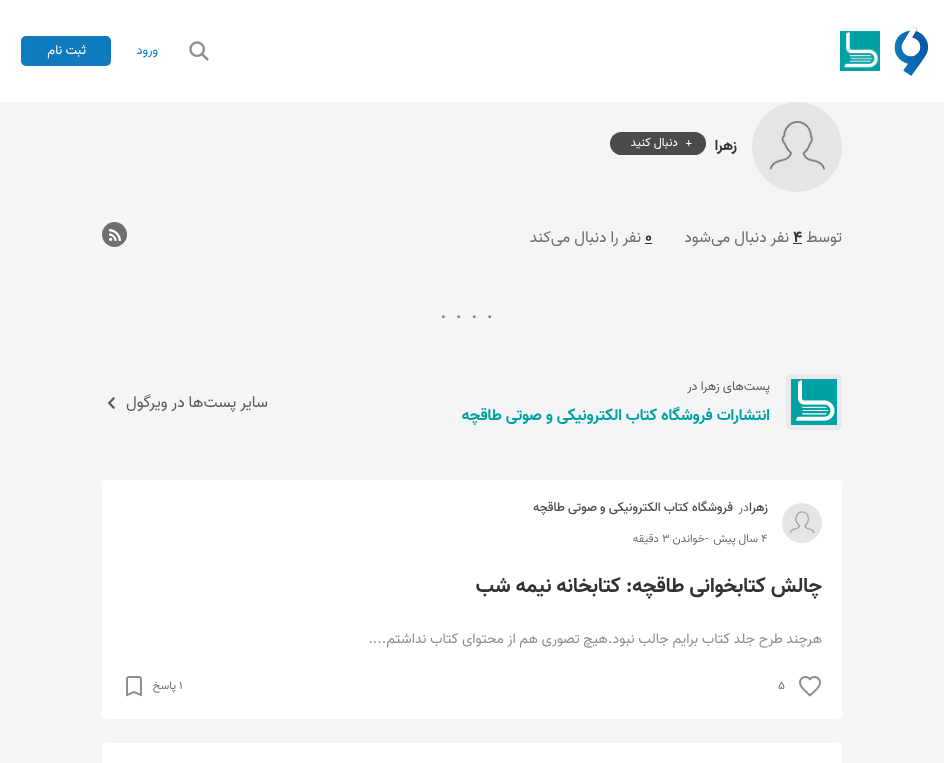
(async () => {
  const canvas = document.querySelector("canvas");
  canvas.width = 944;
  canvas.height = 763;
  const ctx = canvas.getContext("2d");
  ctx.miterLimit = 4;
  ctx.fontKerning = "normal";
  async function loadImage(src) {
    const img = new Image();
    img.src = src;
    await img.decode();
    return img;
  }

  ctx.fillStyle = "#ffffff";
  ctx.fillRect(0, 0, 944, 763);
  ctx.drawImage(await loadImage("img/1.png"), 894, 26, 35, 50);
  ctx.drawImage(await loadImage("img/2.png"), 840, 31, 40, 40);
  ctx.drawImage(await loadImage("img/3.png"), 189, 41, 20, 20);
  ctx.fillStyle = "#107abe";
  ctx.beginPath();
  ctx.roundRect(21, 36, 90, 30, 5);
  ctx.fill();
  ctx.fillStyle = "#f5f5f5";
  ctx.fillRect(0, 102, 944, 661);
  ctx.drawImage(await loadImage("img/4.png"), 752, 102, 90, 90);
  ctx.fillStyle = "#4b4b4b";
  ctx.beginPath();
  ctx.roundRect(610, 132, 96, 23, 11.5);
  ctx.fill();
  ctx.drawImage(await loadImage("img/5.png"), 686, 140, 6, 6);
  ctx.fillStyle = "#323232";
  ctx.fillRect(793, 243, 9, 1);
  ctx.fillRect(645, 243, 7, 1);
  ctx.fillStyle = "#6e6e6e";
  ctx.beginPath();
  ctx.arc(114.5, 234.5, 12.5, 0, Math.PI * 2);
  ctx.fill();
  ctx.drawImage(await loadImage("img/6.png"), 109, 229, 12, 12);
  ctx.fillStyle = "#eaeaea";
  ctx.beginPath();
  ctx.roundRect(786, 374, 56, 56, 5);
  ctx.fill();
  ctx.drawImage(await loadImage("img/7.png"), 791, 379, 46, 46);
  ctx.drawImage(await loadImage("img/8.png"), 108, 397, 7, 12);
  ctx.fillStyle = "#ffffff";
  ctx.beginPath();
  ctx.roundRect(102, 480, 740, 239, 4);
  ctx.fill();
  ctx.drawImage(await loadImage("img/9.png"), 782, 503, 40, 40);
  ctx.drawImage(await loadImage("img/10.png"), 799, 676, 22, 21);
  ctx.drawImage(await loadImage("img/11.png"), 126, 676, 16, 21);
  ctx.beginPath();
  ctx.roundRect(102, 743, 740, 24, 4);
  ctx.fill();
  ctx.direction = "rtl";
  ctx.font = "13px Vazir";
  ctx.fillStyle = "#107abe";
  ctx.fillText("ورود", 158, 54);
  ctx.fillStyle = "#ffffff";
  ctx.fillText("ثبت نام", 86, 54);
  ctx.font = "bold 15px Vazir";
  ctx.fillStyle = "#323232";
  ctx.fillText("زهرا", 737, 150);
  ctx.font = "12px Vazir";
  ctx.fillStyle = "#ffffff";
  ctx.fillText("دنبال کنید", 678, 146);
  ctx.font = "16px Vazir";
  ctx.fillStyle = "#6e6e6e";
  ctx.fillText("توسط", 842, 242);
  ctx.direction = "ltr";
  ctx.font = "bold 16px Vazir";
  ctx.fillStyle = "#323232";
  ctx.fillText("۴", 793, 242);
  ctx.direction = "rtl";
  ctx.font = "16px Vazir";
  ctx.fillStyle = "#6e6e6e";
  ctx.fillText("نفر دنبال می‌شود", 789, 242);
  ctx.direction = "ltr";
  ctx.font = "bold 16px Vazir";
  ctx.fillStyle = "#323232";
  ctx.fillText("۰", 645, 242);
  ctx.direction = "rtl";
  ctx.font = "16px Vazir";
  ctx.fillStyle = "#6e6e6e";
  ctx.fillText("نفر را دنبال می‌کند", 641, 242);
  ctx.letterSpacing = "11px";
  ctx.direction = "ltr";
  ctx.font = "bold 18px Liberation Serif";
  ctx.fillStyle = "#858585";
  ctx.fillText("....", 441, 318);
  ctx.letterSpacing = "0px";
  ctx.direction = "rtl";
  ctx.font = "12.75px Vazir";
  ctx.fillStyle = "#5b5b5b";
  ctx.fillText("پست‌های زهرا در", 770, 390);
  ctx.font = "bold 16px Vazir";
  ctx.fillStyle = "#00a1a4";
  ctx.fillText("انتشارات فروشگاه کتاب الکترونیکی و صوتی طاقچه", 770, 420);
  ctx.font = "16px Vazir";
  ctx.fillStyle = "#5b5b5b";
  ctx.fillText("سایر پست‌ها در ویرگول", 268, 407);
  ctx.font = "500 12.75px Vazir";
  ctx.fillStyle = "#4b4b4b";
  ctx.fillText("زهرا", 768, 511);
  ctx.font = "12.75px Vazir";
  ctx.fillStyle = "#6e6e6e";
  ctx.fillText("در", 749, 511);
  ctx.font = "500 12.75px Vazir";
  ctx.fillStyle = "#4b4b4b";
  ctx.fillText("فروشگاه کتاب الکترونیکی و صوتی طاقچه", 733, 511);
  ctx.direction = "ltr";
  ctx.font = "11.5px Vazir";
  ctx.fillStyle = "#6e6e6e";
  ctx.fillText("۴", 761, 542);
  ctx.direction = "rtl";
  ctx.fillText("سال پیش", 758, 542);
  ctx.direction = "ltr";
  ctx.fillText("-", 705, 542);
  ctx.direction = "rtl";
  ctx.fillText("خواندن", 705, 542);
  ctx.direction = "ltr";
  ctx.fillText("۳", 662, 542);
  ctx.direction = "rtl";
  ctx.fillText("دقیقه", 659, 542);
  ctx.font = "bold 20.75px Vazir";
  ctx.fillStyle = "#323232";
  ctx.fillText("چالش کتابخوانی طاقچه: کتابخانه نیمه شب", 822, 592);
  ctx.font = "14.4px Vazir";
  ctx.fillStyle = "#8e8e8e";
  ctx.fillText("هرچند طرح جلد کتاب برایم جالب نبود.هیچ تصوری هم از محتوای کتاب نداشتم....", 822, 643);
  ctx.direction = "ltr";
  ctx.font = "11.5px Vazir";
  ctx.fillStyle = "#6e6e6e";
  ctx.fillText("۵", 778, 689);
  ctx.fillText("۱", 179, 689);
  ctx.direction = "rtl";
  ctx.fillText("پاسخ", 176, 689);
})();
